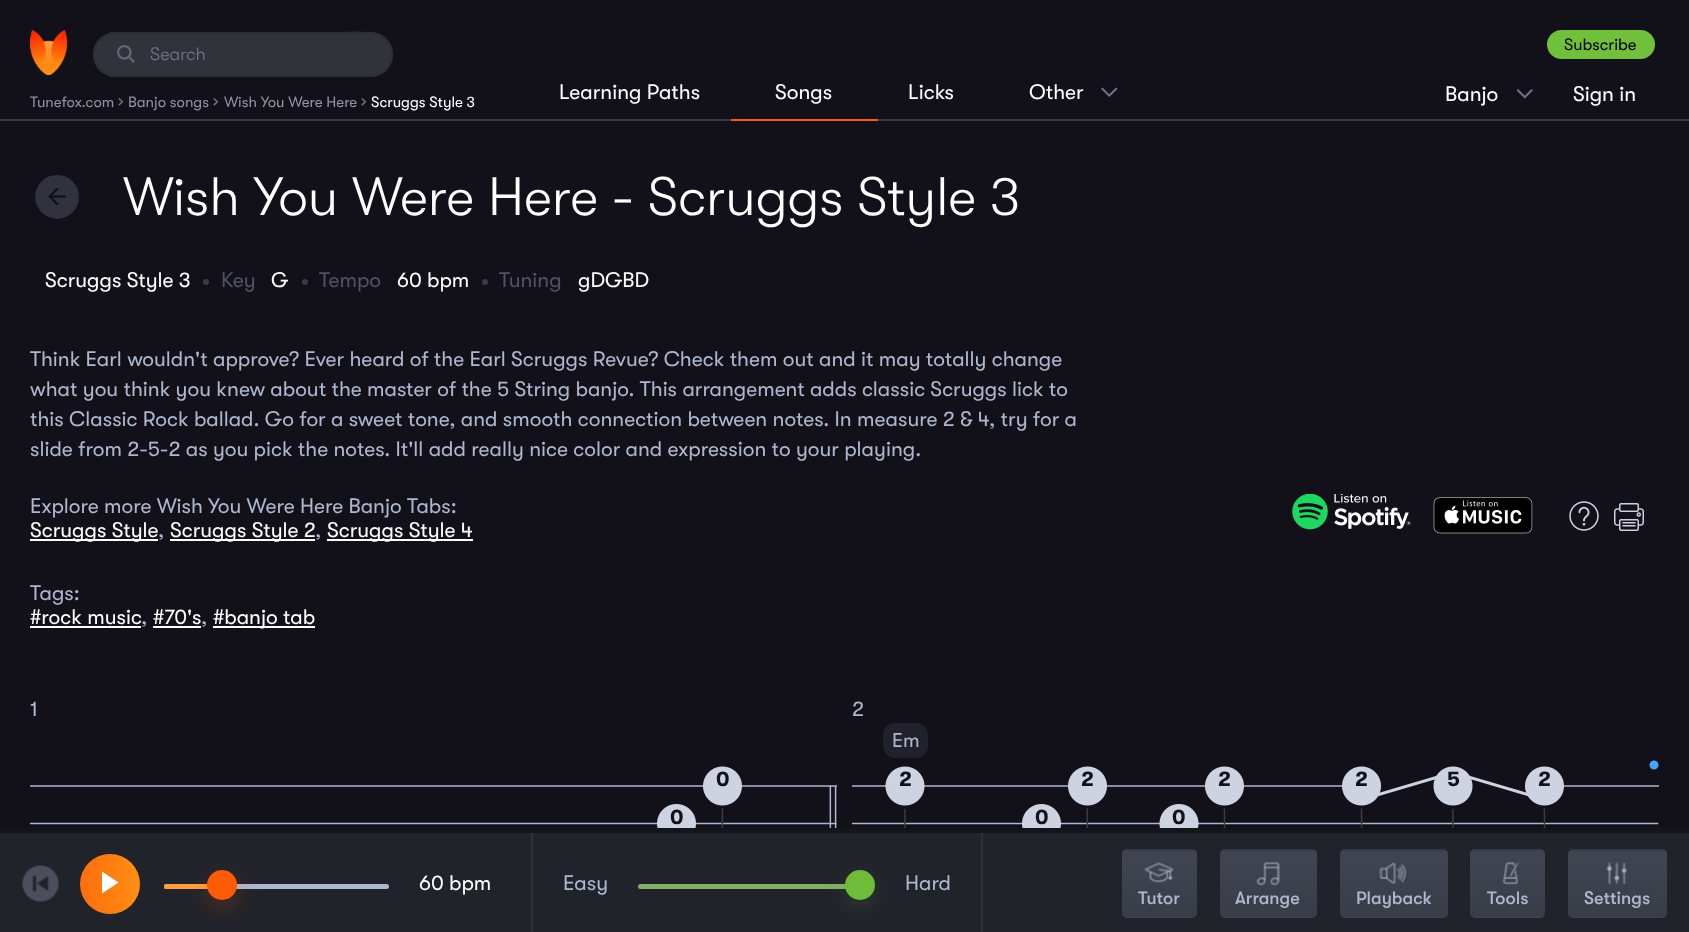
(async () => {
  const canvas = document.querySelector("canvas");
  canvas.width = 1689;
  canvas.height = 932;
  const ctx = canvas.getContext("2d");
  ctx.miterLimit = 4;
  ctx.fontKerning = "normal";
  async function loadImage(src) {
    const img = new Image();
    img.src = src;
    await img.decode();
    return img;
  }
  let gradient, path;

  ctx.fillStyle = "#12111a";
  ctx.fillRect(0, 0, 1689, 932);
  ctx.fillStyle = "#363840";
  ctx.fillRect(0, 119, 1689, 2);
  ctx.drawImage(await loadImage("img/1.png"), 30, 30, 38, 45);
  ctx.fillStyle = "#31333b";
  ctx.beginPath();
  ctx.roundRect(93, 32, 300, 45, 22.5);
  ctx.fill();
  ctx.fillStyle = "#2d2f37";
  path = new Path2D("M116 34H370C382 34 391 43 392 55C393 23 343 33 328 33H116C108 33 101 38 97 45C101 38 108 34 116 34Z");
  ctx.fill(path);
  ctx.beginPath();
  ctx.roundRect(94, 33, 298, 43, 21.5);
  ctx.strokeStyle = "#2c2e3a";
  ctx.lineWidth = 2;
  ctx.stroke();
  ctx.drawImage(await loadImage("img/2.png"), 117, 45, 18, 18);
  ctx.fillStyle = "#fe5b06";
  ctx.fillRect(731, 119, 147, 2);
  ctx.drawImage(await loadImage("img/3.png"), 1101, 87, 17, 10);
  ctx.drawImage(await loadImage("img/4.png"), 1517, 89, 16, 10);
  ctx.fillStyle = "#71c03c";
  ctx.beginPath();
  ctx.roundRect(1547, 30, 108, 29, 14.5);
  ctx.fill();
  ctx.fillStyle = "#31323d";
  ctx.beginPath();
  ctx.arc(57.5, 196.5, 22.5, 0, Math.PI * 2);
  ctx.fill();
  ctx.drawImage(await loadImage("img/5.png"), 48, 188, 18, 18);
  ctx.beginPath();
  ctx.arc(57, 197, 24.5, 0, Math.PI * 2);
  ctx.strokeStyle = "#12111a";
  ctx.lineWidth = 5;
  ctx.stroke();
  ctx.fillStyle = "#393b47";
  ctx.beginPath();
  ctx.arc(206, 282, 3, 0, Math.PI * 2);
  ctx.fill();
  ctx.beginPath();
  ctx.arc(305, 282, 3, 0, Math.PI * 2);
  ctx.fill();
  ctx.beginPath();
  ctx.arc(485, 282, 3, 0, Math.PI * 2);
  ctx.fill();
  for (const [x, y, w, h, color] of [
    [30, 539, 128, 2, "#ffffff"],
    [170, 539, 145, 2, "#ffffff"],
    [327, 539, 146, 2, "#ffffff"],
  ]) {
    ctx.fillStyle = color;
    ctx.fillRect(x, y, w, h);
  }
  ctx.drawImage(await loadImage("img/6.png"), 1292, 494, 119, 36);
  ctx.drawImage(await loadImage("img/7.png"), 1433, 497, 100, 37);
  ctx.drawImage(await loadImage("img/8.png"), 1569, 501, 30, 30);
  ctx.drawImage(await loadImage("img/9.png"), 1614, 503, 30, 28);
  for (const [x, y, w, h, color] of [
    [30, 626, 111, 2, "#ffffff"],
    [153, 626, 48, 2, "#ffffff"],
    [213, 626, 102, 2, "#ffffff"],
  ]) {
    ctx.fillStyle = color;
    ctx.fillRect(x, y, w, h);
  }
  ctx.drawImage(await loadImage("img/10.png"), 30, 766, 807, 62);
  ctx.drawImage(await loadImage("img/11.png"), 852, 723, 807, 105);
  ctx.fillStyle = "#21232b";
  ctx.fillRect(0, 833, 1689, 99);
  ctx.fillStyle = "#14151a";
  ctx.fillRect(0, 828, 1689, 5);
  ctx.drawImage(await loadImage("img/12.png"), 22, 865, 37, 37);
  gradient = ctx.createLinearGradient(80, 884, 140, 884);
  gradient.addColorStop(0, "#ff6d0a");
  gradient.addColorStop(1, "#ff8f15");
  ctx.fillStyle = gradient;
  ctx.beginPath();
  ctx.arc(110, 884, 30, 0, Math.PI * 2);
  ctx.fill();
  ctx.fillStyle = "#ffffff";
  path = new Path2D("M102 871.5L118.5 882.5L102 893.5Z");
  ctx.fill(path, "evenodd");
  ctx.fillStyle = "#adb7ce";
  ctx.beginPath();
  ctx.roundRect(164, 884, 225, 5, 2.5);
  ctx.fill();
  ctx.fillStyle = "#ff9c41";
  ctx.beginPath();
  ctx.roundRect(164, 884, 58, 5, 2.5);
  ctx.fill();
  ctx.fillStyle = "rgba(254, 91, 6, 0.2)";
  ctx.filter = "blur(10.5px)";
  ctx.beginPath();
  ctx.roundRect(206, 876, 33, 33, 16.5);
  ctx.fill();
  ctx.filter = "none";
  ctx.fillStyle = "#fe5b06";
  ctx.beginPath();
  ctx.arc(222, 885, 15, 0, Math.PI * 2);
  ctx.fill();
  ctx.fillStyle = "#2f323b";
  ctx.fillRect(531, 833, 2, 99);
  ctx.fillStyle = "#83af65";
  ctx.beginPath();
  ctx.roundRect(638, 884, 222, 5, 2.5);
  ctx.fill();
  ctx.fillStyle = "rgba(110, 188, 57, 0.15)";
  ctx.filter = "blur(10.5px)";
  ctx.beginPath();
  ctx.roundRect(843, 876, 33, 33, 16.5);
  ctx.fill();
  ctx.filter = "none";
  ctx.fillStyle = "#6ebc39";
  ctx.beginPath();
  ctx.arc(860, 885, 15, 0, Math.PI * 2);
  ctx.fill();
  ctx.fillStyle = "#2f323b";
  ctx.fillRect(981, 833, 2, 99);
  ctx.save();
  ctx.beginPath();
  ctx.roundRect(1122, 849, 75, 69, 5);
  ctx.clip();
  gradient = ctx.createLinearGradient(1160, 851, 1160, 785);
  gradient.addColorStop(0, "#393d48");
  gradient.addColorStop(1, "#414551");
  ctx.fillStyle = gradient;
  ctx.fillRect(1122, 849, 75, 2);
  gradient = ctx.createLinearGradient(1160, 917, 1160, 851);
  gradient.addColorStop(0, "#393d48");
  gradient.addColorStop(1, "#414551");
  ctx.fillStyle = gradient;
  ctx.fillRect(1122, 851, 75, 66);
  gradient = ctx.createLinearGradient(1160, 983, 1160, 917);
  gradient.addColorStop(0, "#393d48");
  gradient.addColorStop(1, "#414551");
  ctx.fillStyle = gradient;
  ctx.fillRect(1122, 917, 75, 1);
  ctx.restore();
  ctx.drawImage(await loadImage("img/13.png"), 1144, 862, 30, 21);
  ctx.save();
  ctx.beginPath();
  ctx.roundRect(1220, 849, 97, 69, 5);
  ctx.clip();
  gradient = ctx.createLinearGradient(1268, 851, 1268, 785);
  gradient.addColorStop(0, "#393d48");
  gradient.addColorStop(1, "#414551");
  ctx.fillStyle = gradient;
  ctx.fillRect(1220, 849, 97, 2);
  gradient = ctx.createLinearGradient(1268, 917, 1268, 851);
  gradient.addColorStop(0, "#393d48");
  gradient.addColorStop(1, "#414551");
  ctx.fillStyle = gradient;
  ctx.fillRect(1220, 851, 97, 66);
  gradient = ctx.createLinearGradient(1268, 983, 1268, 917);
  gradient.addColorStop(0, "#393d48");
  gradient.addColorStop(1, "#414551");
  ctx.fillStyle = gradient;
  ctx.fillRect(1220, 917, 97, 1);
  ctx.restore();
  ctx.drawImage(await loadImage("img/14.png"), 1256, 862, 24, 24);
  ctx.save();
  ctx.beginPath();
  ctx.roundRect(1340, 849, 108, 69, 5);
  ctx.clip();
  gradient = ctx.createLinearGradient(1394, 851, 1394, 785);
  gradient.addColorStop(0, "#393d48");
  gradient.addColorStop(1, "#414551");
  ctx.fillStyle = gradient;
  ctx.fillRect(1340, 849, 108, 2);
  gradient = ctx.createLinearGradient(1394, 917, 1394, 851);
  gradient.addColorStop(0, "#393d48");
  gradient.addColorStop(1, "#414551");
  ctx.fillStyle = gradient;
  ctx.fillRect(1340, 851, 108, 66);
  gradient = ctx.createLinearGradient(1394, 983, 1394, 917);
  gradient.addColorStop(0, "#393d48");
  gradient.addColorStop(1, "#414551");
  ctx.fillStyle = gradient;
  ctx.fillRect(1340, 917, 108, 1);
  ctx.restore();
  ctx.drawImage(await loadImage("img/15.png"), 1379, 862, 28, 23);
  ctx.save();
  ctx.beginPath();
  ctx.roundRect(1470, 849, 75, 69, 5);
  ctx.clip();
  gradient = ctx.createLinearGradient(1508, 851, 1508, 785);
  gradient.addColorStop(0, "#393d48");
  gradient.addColorStop(1, "#414551");
  ctx.fillStyle = gradient;
  ctx.fillRect(1470, 849, 75, 2);
  gradient = ctx.createLinearGradient(1508, 917, 1508, 851);
  gradient.addColorStop(0, "#393d48");
  gradient.addColorStop(1, "#414551");
  ctx.fillStyle = gradient;
  ctx.fillRect(1470, 851, 75, 66);
  gradient = ctx.createLinearGradient(1508, 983, 1508, 917);
  gradient.addColorStop(0, "#393d48");
  gradient.addColorStop(1, "#414551");
  ctx.fillStyle = gradient;
  ctx.fillRect(1470, 917, 75, 1);
  ctx.restore();
  ctx.drawImage(await loadImage("img/16.png"), 1503, 862, 16, 23);
  ctx.save();
  ctx.beginPath();
  ctx.roundRect(1568, 849, 99, 69, 5);
  ctx.clip();
  gradient = ctx.createLinearGradient(1617, 851, 1617, 785);
  gradient.addColorStop(0, "#393d48");
  gradient.addColorStop(1, "#414551");
  ctx.fillStyle = gradient;
  ctx.fillRect(1568, 849, 99, 2);
  gradient = ctx.createLinearGradient(1617, 917, 1617, 851);
  gradient.addColorStop(0, "#393d48");
  gradient.addColorStop(1, "#414551");
  ctx.fillStyle = gradient;
  ctx.fillRect(1568, 851, 99, 66);
  gradient = ctx.createLinearGradient(1617, 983, 1617, 917);
  gradient.addColorStop(0, "#393d48");
  gradient.addColorStop(1, "#414551");
  ctx.fillStyle = gradient;
  ctx.fillRect(1568, 917, 99, 1);
  ctx.restore();
  ctx.drawImage(await loadImage("img/17.png"), 1606, 862, 21, 23);
  ctx.font = "300 18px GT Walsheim";
  ctx.fillStyle = "#747888";
  ctx.fillText("Search", 150, 60);
  ctx.font = "15px GT Walsheim";
  ctx.fillStyle = "#8e92a1";
  ctx.fillText("Tunefox.com", 30, 107);
  ctx.font = "20px GT Walsheim";
  ctx.fillStyle = "#6b7384";
  ctx.fillText("›", 118, 107);
  ctx.font = "15px GT Walsheim";
  ctx.fillStyle = "#8e92a1";
  ctx.fillText("Banjo songs", 128, 107);
  ctx.font = "20px GT Walsheim";
  ctx.fillStyle = "#6b7384";
  ctx.fillText("›", 213, 107);
  ctx.font = "15px GT Walsheim";
  ctx.fillStyle = "#8e92a1";
  ctx.fillText("Wish You Were Here", 224, 107);
  ctx.font = "20px GT Walsheim";
  ctx.fillStyle = "#6b7384";
  ctx.fillText("›", 361, 107);
  ctx.font = "15px GT Walsheim";
  ctx.fillStyle = "#ffffff";
  ctx.fillText("Scruggs Style 3", 371, 107);
  ctx.font = "21px GT Walsheim";
  for (const [text, x, y] of [
    ["Learning Paths", 559, 99],
    ["Songs", 775, 99],
    ["Licks", 908, 99],
    ["Other", 1029, 99],
    ["Banjo", 1445, 101],
  ]) {
    ctx.fillText(text, x, y);
  }
  ctx.font = "16.5px GT Walsheim";
  ctx.fillStyle = "#000000";
  ctx.fillText("Subscribe", 1564, 50);
  ctx.font = "21px GT Walsheim";
  ctx.fillStyle = "#ffffff";
  ctx.fillText("Sign in", 1573, 101);
  ctx.font = "300 54px GT Walsheim";
  ctx.fillText("Wish You Were Here - Scruggs Style 3", 123, 215);
  ctx.font = "21px GT Walsheim";
  ctx.fillText("Scruggs Style 3", 45, 287);
  ctx.fillStyle = "#4f5361";
  ctx.fillText("Key", 221, 287);
  ctx.fillStyle = "#ffffff";
  ctx.fillText("G", 271, 287);
  ctx.fillStyle = "#4f5361";
  ctx.fillText("Tempo", 319, 287);
  ctx.fillStyle = "#ffffff";
  ctx.fillText("60 bpm", 397, 287);
  ctx.fillStyle = "#4f5361";
  ctx.fillText("Tuning", 499, 287);
  ctx.fillStyle = "#ffffff";
  ctx.fillText("gDGBD", 578, 287);
  ctx.fillStyle = "#aeb7ce";
  for (const [text, x, y] of [
    ["Think Earl wouldn't approve? Ever heard of the Earl Scruggs Revue? Check them out and it may totally change", 30, 366],
    ["what you think you knew about the master of the 5 String banjo. This arrangement adds classic Scruggs lick to", 30, 396],
    ["this Classic Rock ballad. Go for a sweet tone, and smooth connection between notes. In measure 2 & 4, try for a", 30, 426],
    ["slide from 2-5-2 as you pick the notes. It'll add really nice color and expression to your playing.", 30, 456],
    ["Explore more Wish You Were Here Banjo Tabs:", 30, 513],
  ]) {
    ctx.fillText(text, x, y);
  }
  ctx.fillStyle = "#ffffff";
  ctx.fillText("Scruggs Style", 30, 537);
  ctx.fillStyle = "#aeb7ce";
  ctx.fillText(",", 158, 537);
  ctx.fillStyle = "#ffffff";
  ctx.fillText("Scruggs Style 2", 170, 537);
  ctx.fillStyle = "#aeb7ce";
  ctx.fillText(",", 315, 537);
  ctx.fillStyle = "#ffffff";
  ctx.fillText("Scruggs Style 4", 327, 537);
  ctx.fillStyle = "#aeb7ce";
  ctx.fillText("Tags:", 30, 600);
  ctx.fillStyle = "#ffffff";
  ctx.fillText("#rock music", 30, 624);
  ctx.fillStyle = "#aeb7ce";
  ctx.fillText(",", 141, 624);
  ctx.fillStyle = "#ffffff";
  ctx.fillText("#70's", 153, 624);
  ctx.fillStyle = "#aeb7ce";
  ctx.fillText(",", 201, 624);
  ctx.fillStyle = "#ffffff";
  ctx.fillText("#banjo tab", 213, 624);
  ctx.fillStyle = "#aeb7ce";
  ctx.fillText("1", 30, 716);
  ctx.font = "bold 21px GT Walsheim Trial";
  ctx.fillStyle = "#12111a";
  ctx.fillText("0", 716, 786);
  ctx.fillText("0", 670, 824);
  ctx.font = "21px GT Walsheim";
  ctx.fillStyle = "#aeb7ce";
  ctx.fillText("2", 852, 716);
  ctx.font = "20px GT Walsheim";
  ctx.fillText("Em", 892, 747);
  ctx.font = "bold 21px GT Walsheim Trial";
  ctx.fillStyle = "#12111a";
  for (const [text, x, y] of [
    ["2", 899, 786],
    ["2", 1081, 786],
    ["2", 1218, 786],
    ["2", 1355, 786],
    ["5", 1447, 786],
    ["2", 1538, 786],
    ["0", 1035, 824],
    ["0", 1172, 824],
  ]) {
    ctx.fillText(text, x, y);
  }
  ctx.font = "21px GT Walsheim";
  ctx.fillStyle = "#ffffff";
  ctx.fillText("60 bpm", 419, 890);
  ctx.fillStyle = "#aeb7ce";
  ctx.fillText("Easy", 563, 890);
  ctx.fillText("Hard", 905, 890);
  ctx.font = "500 18px GT Walsheim";
  for (const [text, x, y] of [
    ["Tutor", 1138, 904],
    ["Arrange", 1235, 904],
    ["Playback", 1356, 904],
    ["Tools", 1487, 904],
    ["Settings", 1584, 904],
  ]) {
    ctx.fillText(text, x, y);
  }
})();
